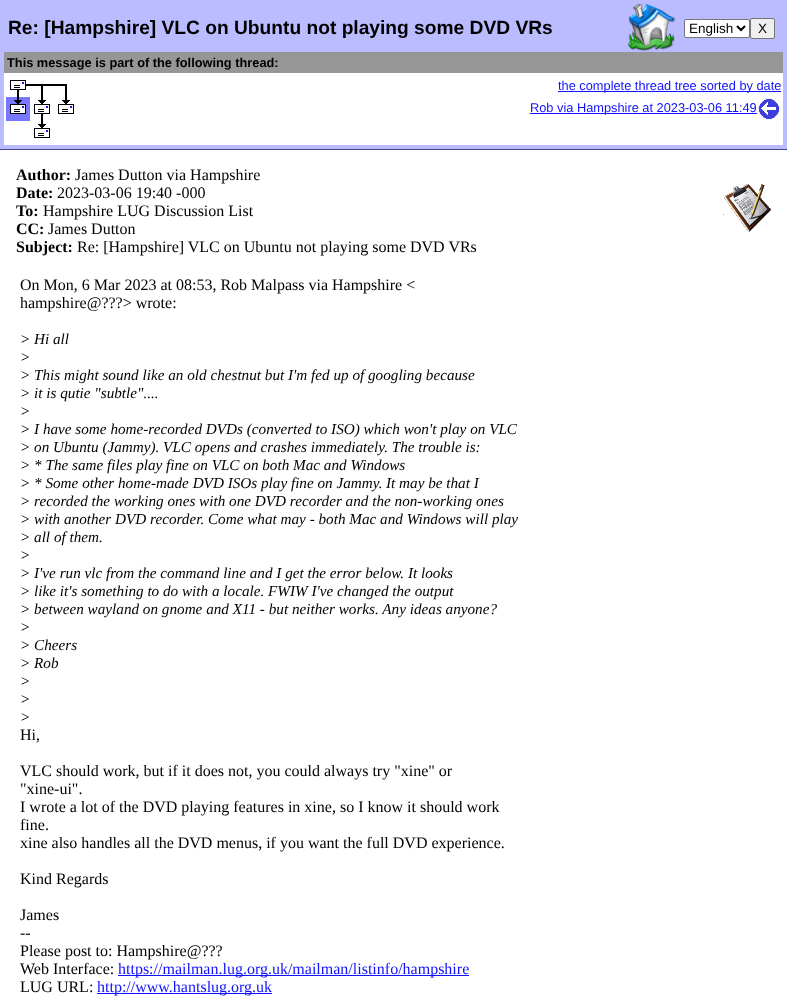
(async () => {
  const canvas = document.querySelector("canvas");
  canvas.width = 787;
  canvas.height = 1000;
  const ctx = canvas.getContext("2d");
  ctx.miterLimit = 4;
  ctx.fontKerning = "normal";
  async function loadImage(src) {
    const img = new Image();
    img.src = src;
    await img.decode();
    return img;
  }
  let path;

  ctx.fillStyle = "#bbbbff";
  ctx.fillRect(0, 0, 787, 1000);
  ctx.fillStyle = "#434399";
  ctx.fillRect(0, 149, 787, 1);
  ctx.drawImage(await loadImage("img/1.png"), 628, 4, 48, 48);
  ctx.fillStyle = "#ffffff";
  ctx.beginPath();
  ctx.roundRect(684.5, 19.5, 65, 18, 1.5);
  ctx.fill();
  ctx.strokeStyle = "#767676";
  ctx.stroke();
  path = new Path2D("M737 26L741 30L745 26");
  ctx.strokeStyle = "#000000";
  ctx.lineWidth = 2;
  ctx.stroke(path);
  ctx.fillStyle = "#efefef";
  ctx.beginPath();
  ctx.roundRect(750.5, 18.5, 24, 20, 1.5);
  ctx.fill();
  ctx.strokeStyle = "#767676";
  ctx.lineWidth = 1;
  ctx.stroke();
  ctx.fillStyle = "#969696";
  ctx.fillRect(4, 52, 779, 21);
  ctx.fillStyle = "#ffffff";
  ctx.fillRect(4, 73, 779, 24);
  ctx.drawImage(await loadImage("img/2.png"), 10, 80, 20, 17);
  ctx.drawImage(await loadImage("img/3.png"), 30, 84, 24, 13);
  ctx.drawImage(await loadImage("img/4.png"), 54, 84, 13, 13);
  for (const [x, y, w, h, color] of [
    [558, 91, 223, 1, "#1111ff"],
    [4, 97, 779, 24, "#ffffff"],
    [6, 97, 24, 24, "#7777ff"],
  ]) {
    ctx.fillStyle = color;
    ctx.fillRect(x, y, w, h);
  }
  ctx.drawImage(await loadImage("img/5.png"), 10, 97, 16, 17);
  ctx.drawImage(await loadImage("img/6.png"), 34, 97, 16, 24);
  ctx.drawImage(await loadImage("img/7.png"), 58, 97, 16, 17);
  ctx.fillStyle = "#1111ff";
  ctx.fillRect(530, 113, 227, 1);
  ctx.drawImage(await loadImage("img/8.png"), 758, 98, 22, 22);
  ctx.fillStyle = "#ffffff";
  ctx.fillRect(4, 121, 779, 24);
  ctx.drawImage(await loadImage("img/7.png"), 34, 121, 16, 17);
  ctx.fillRect(0, 150, 787, 850);
  ctx.drawImage(await loadImage("img/9.png"), 723, 184, 48, 48);
  ctx.fillStyle = "#1111ff";
  ctx.fillRect(118, 975, 351, 1);
  ctx.fillRect(97, 993, 175, 1);
  ctx.font = "bold 19.2px Liberation Sans";
  ctx.fillStyle = "#000000";
  ctx.fillText("Re: [Hampshire] VLC on Ubuntu not playing some DVD VRs", 8, 34);
  ctx.font = "13.5px Liberation Sans";
  ctx.fillText("English", 689, 33);
  ctx.fillText("X", 758, 33);
  ctx.font = "bold 12.8px Liberation Sans";
  ctx.fillText("This message is part of the following thread:", 7, 67);
  ctx.font = "12.8px Liberation Sans";
  ctx.fillStyle = "#1111ff";
  ctx.fillText("the complete thread tree sorted by date", 558, 90);
  ctx.fillText("Rob via Hampshire at 2023-03-06 11:49", 530, 112);
  ctx.font = "bold 16px Liberation Serif";
  ctx.fillStyle = "#000000";
  ctx.fillText("Author:", 16, 180);
  ctx.font = "16px Liberation Serif";
  ctx.fillText("James Dutton via Hampshire", 75, 180);
  ctx.font = "bold 16px Liberation Serif";
  ctx.fillText("Date:", 16, 198);
  ctx.font = "16px Liberation Serif";
  ctx.fillText("2023-03-06 19:40 -000", 57, 198);
  ctx.font = "bold 16px Liberation Serif";
  ctx.fillText("To:", 16, 216);
  ctx.font = "16px Liberation Serif";
  ctx.fillText("Hampshire LUG Discussion List", 43, 216);
  ctx.font = "bold 16px Liberation Serif";
  ctx.fillText("CC:", 16, 234);
  ctx.font = "16px Liberation Serif";
  ctx.fillText("James Dutton", 48, 234);
  ctx.font = "bold 16px Liberation Serif";
  ctx.fillText("Subject:", 16, 252);
  ctx.font = "16px Liberation Serif";
  for (const [text, x, y] of [
    ["Re: [Hampshire] VLC on Ubuntu not playing some DVD VRs", 77, 252],
    ["On Mon, 6 Mar 2023 at 08:53, Rob Malpass via Hampshire <", 20, 290],
    ["hampshire@???> wrote:", 20, 308],
  ]) {
    ctx.fillText(text, x, y);
  }
  ctx.font = "italic 15.2px Liberation Serif";
  for (const [text, x, y] of [
    ["> Hi all", 20, 344],
    [">", 20, 362],
    ["> This might sound like an old chestnut but I'm fed up of googling because", 20, 380],
    ["> it is qutie \"subtle\"....", 20, 398],
    [">", 20, 416],
    ["> I have some home-recorded DVDs (converted to ISO) which won't play on VLC", 20, 434],
    ["> on Ubuntu (Jammy). VLC opens and crashes immediately. The trouble is:", 20, 452],
    ["> * The same files play fine on VLC on both Mac and Windows", 20, 470],
    ["> * Some other home-made DVD ISOs play fine on Jammy.", 20, 488],
    ["It may be that I", 386, 488],
    ["> recorded the working ones with one DVD recorder and the non-working ones", 20, 506],
    ["> with another DVD recorder. Come what may - both Mac and Windows will play", 20, 524],
    ["> all of them.", 20, 542],
    [">", 20, 560],
    ["> I've run vlc from the command line and I get the error below. It looks", 20, 578],
    ["> like it's something to do with a locale. FWIW I've changed the output", 20, 596],
    ["> between wayland on gnome and X11 - but neither works. Any ideas anyone?", 20, 614],
    [">", 20, 632],
    ["> Cheers", 20, 650],
    ["> Rob", 20, 668],
    [">", 20, 686],
    [">", 20, 704],
    [">", 20, 722],
  ]) {
    ctx.fillText(text, x, y);
  }
  ctx.font = "16px Liberation Serif";
  for (const [text, x, y] of [
    ["Hi,", 20, 740],
    ["VLC should work, but if it does not, you could always try \"xine\" or", 20, 776],
    ["\"xine-ui\".", 20, 794],
    ["I wrote a lot of the DVD playing features in xine, so I know it should work", 20, 812],
    ["fine.", 20, 830],
    ["xine also handles all the DVD menus, if you want the full DVD experience.", 20, 848],
    ["Kind Regards", 20, 884],
    ["James", 20, 920],
    ["--", 20, 938],
    ["Please post to: Hampshire@???", 20, 956],
    ["Web Interface:", 20, 974],
  ]) {
    ctx.fillText(text, x, y);
  }
  ctx.fillStyle = "#1111ff";
  ctx.fillText("https://mailman.lug.org.uk/mailman/listinfo/hampshire", 118, 974);
  ctx.fillStyle = "#000000";
  ctx.fillText("LUG URL:", 20, 992);
  ctx.fillStyle = "#1111ff";
  ctx.fillText("http://www.hantslug.org.uk", 97, 992);
})();
